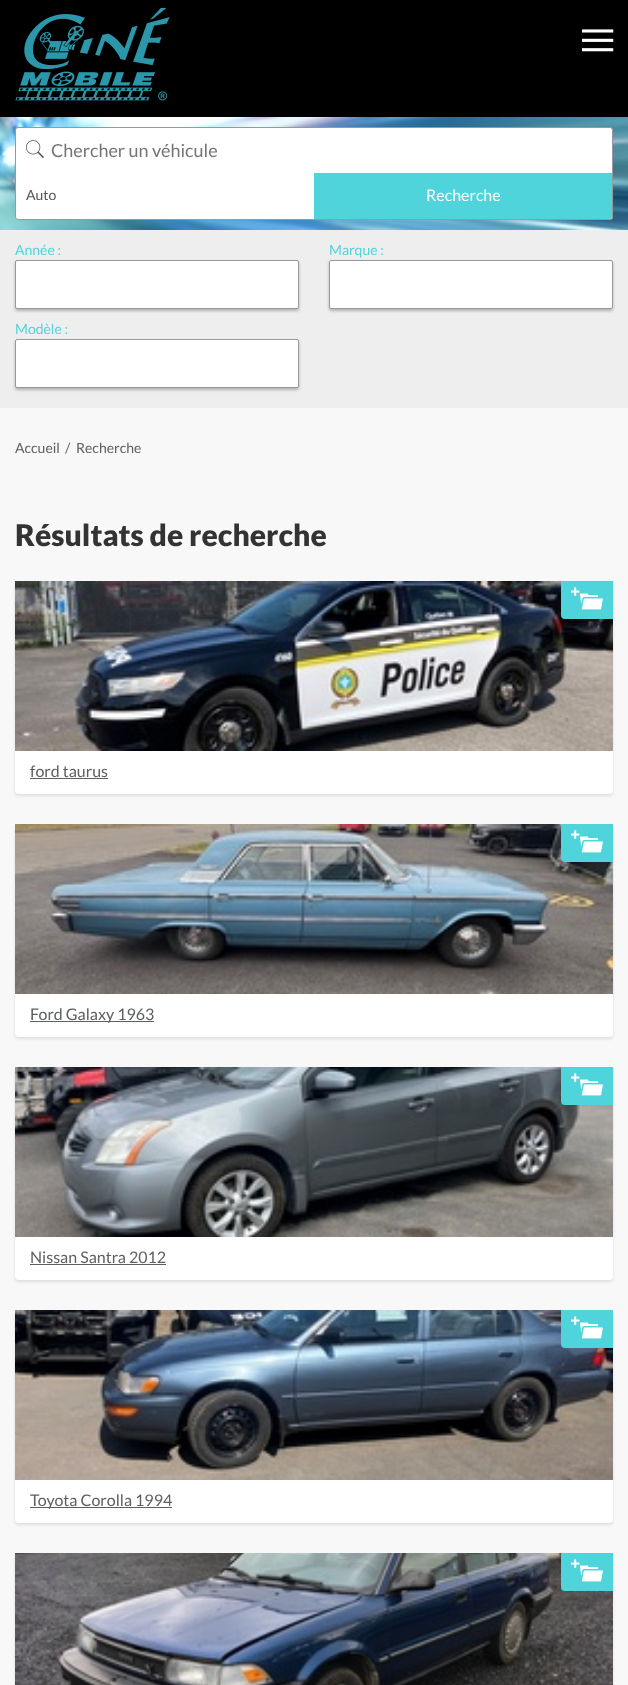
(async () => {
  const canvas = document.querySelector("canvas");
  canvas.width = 628;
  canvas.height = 1685;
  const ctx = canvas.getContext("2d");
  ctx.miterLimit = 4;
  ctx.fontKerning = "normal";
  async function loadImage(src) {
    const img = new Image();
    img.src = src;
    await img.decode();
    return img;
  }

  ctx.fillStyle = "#f8f8f8";
  ctx.fillRect(0, 0, 628, 1685);
  ctx.fillStyle = "#000000";
  ctx.fillRect(0, 0, 628, 117);
  ctx.drawImage(await loadImage("img/1.png"), 15, 7, 155, 94);
  ctx.drawImage(await loadImage("img/2.png"), 582, 29, 32, 23);
  ctx.drawImage(await loadImage("img/3.png"), 0, 117, 628, 113);
  ctx.fillStyle = "#ffffff";
  ctx.beginPath();
  ctx.roundRect(15.5, 127.5, 597, 92, 2.5);
  ctx.fill();
  ctx.strokeStyle = "#97999c";
  ctx.stroke();
  ctx.drawImage(await loadImage("img/4.png"), 26, 140, 18, 18);
  ctx.fillStyle = "#4ed4da";
  ctx.beginPath();
  ctx.roundRect(314, 173, 298, 46, [0, 0, 2, 0]);
  ctx.fill();
  ctx.fillStyle = "#eeeeee";
  ctx.fillRect(0, 230, 628, 178);
  ctx.fillStyle = "rgba(0, 0, 0, 0.25)";
  ctx.filter = "blur(1.5px)";
  ctx.beginPath();
  ctx.roundRect(15, 262, 284, 49, 2);
  ctx.fill();
  ctx.filter = "none";
  ctx.fillStyle = "#ffffff";
  ctx.beginPath();
  ctx.roundRect(15.5, 260.5, 283, 48, 1.5);
  ctx.fill();
  ctx.stroke();
  ctx.fillStyle = "rgba(0, 0, 0, 0.25)";
  ctx.filter = "blur(1.5px)";
  ctx.beginPath();
  ctx.roundRect(329, 262, 284, 49, 2);
  ctx.fill();
  ctx.filter = "none";
  ctx.fillStyle = "#ffffff";
  ctx.beginPath();
  ctx.roundRect(329.5, 260.5, 283, 48, 1.5);
  ctx.fill();
  ctx.stroke();
  ctx.fillStyle = "rgba(0, 0, 0, 0.25)";
  ctx.filter = "blur(1.5px)";
  ctx.beginPath();
  ctx.roundRect(15, 341, 284, 49, 2);
  ctx.fill();
  ctx.filter = "none";
  ctx.fillStyle = "#ffffff";
  ctx.beginPath();
  ctx.roundRect(15.5, 339.5, 283, 48, 1.5);
  ctx.fill();
  ctx.stroke();
  ctx.fillStyle = "rgba(0, 0, 0, 0.1)";
  ctx.filter = "blur(1.5px)";
  ctx.beginPath();
  ctx.roundRect(15, 583, 598, 213, 4);
  ctx.fill();
  ctx.filter = "none";
  ctx.fillStyle = "#ffffff";
  ctx.beginPath();
  ctx.roundRect(15, 581, 598, 213, [0, 0, 4, 4]);
  ctx.fill();
  ctx.drawImage(await loadImage("img/6.png"), 15, 581, 598, 170);
  ctx.fillStyle = "#4ed4da";
  ctx.beginPath();
  ctx.roundRect(561, 581, 52, 38, [0, 0, 0, 4]);
  ctx.fill();
  ctx.drawImage(await loadImage("img/5.png"), 571, 587, 32, 23);
  ctx.fillStyle = "#5d6060";
  ctx.fillRect(30, 778, 78, 1);
  ctx.fillStyle = "rgba(0, 0, 0, 0.1)";
  ctx.filter = "blur(1.5px)";
  ctx.beginPath();
  ctx.roundRect(15, 826, 598, 213, 4);
  ctx.fill();
  ctx.filter = "none";
  ctx.fillStyle = "#ffffff";
  ctx.beginPath();
  ctx.roundRect(15, 824, 598, 213, [0, 0, 4, 4]);
  ctx.fill();
  ctx.drawImage(await loadImage("img/7.png"), 15, 824, 598, 170);
  ctx.fillStyle = "#4ed4da";
  ctx.beginPath();
  ctx.roundRect(561, 824, 52, 38, [0, 0, 0, 4]);
  ctx.fill();
  ctx.drawImage(await loadImage("img/5.png"), 571, 830, 32, 23);
  ctx.fillStyle = "#5d6060";
  ctx.fillRect(30, 1021, 124, 1);
  ctx.fillStyle = "rgba(0, 0, 0, 0.1)";
  ctx.filter = "blur(1.5px)";
  ctx.beginPath();
  ctx.roundRect(15, 1069, 598, 213, 4);
  ctx.fill();
  ctx.filter = "none";
  ctx.fillStyle = "#ffffff";
  ctx.beginPath();
  ctx.roundRect(15, 1067, 598, 213, [0, 0, 4, 4]);
  ctx.fill();
  ctx.drawImage(await loadImage("img/8.png"), 15, 1067, 598, 170);
  ctx.fillStyle = "#4ed4da";
  ctx.beginPath();
  ctx.roundRect(561, 1067, 52, 38, [0, 0, 0, 4]);
  ctx.fill();
  ctx.drawImage(await loadImage("img/5.png"), 571, 1073, 32, 23);
  ctx.fillStyle = "#5d6060";
  ctx.fillRect(30, 1264, 136, 1);
  ctx.fillStyle = "rgba(0, 0, 0, 0.1)";
  ctx.filter = "blur(1.5px)";
  ctx.beginPath();
  ctx.roundRect(15, 1312, 598, 213, 4);
  ctx.fill();
  ctx.filter = "none";
  ctx.fillStyle = "#ffffff";
  ctx.beginPath();
  ctx.roundRect(15, 1310, 598, 213, [0, 0, 4, 4]);
  ctx.fill();
  ctx.drawImage(await loadImage("img/9.png"), 15, 1310, 598, 170);
  ctx.fillStyle = "#4ed4da";
  ctx.beginPath();
  ctx.roundRect(561, 1310, 52, 38, [0, 0, 0, 4]);
  ctx.fill();
  ctx.drawImage(await loadImage("img/5.png"), 571, 1316, 32, 23);
  ctx.fillStyle = "#5d6060";
  ctx.fillRect(30, 1507, 142, 1);
  ctx.fillStyle = "rgba(0, 0, 0, 0.1)";
  ctx.filter = "blur(1.5px)";
  ctx.beginPath();
  ctx.roundRect(15, 1555, 598, 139, 4);
  ctx.fill();
  ctx.filter = "none";
  ctx.drawImage(await loadImage("img/10.png"), 15, 1553, 598, 132);
  ctx.fillStyle = "#4ed4da";
  ctx.beginPath();
  ctx.roundRect(561, 1553, 52, 38, [0, 0, 0, 4]);
  ctx.fill();
  ctx.drawImage(await loadImage("img/5.png"), 571, 1559, 32, 23);
  ctx.font = "18px Lato";
  ctx.fillStyle = "#757575";
  ctx.fillText("Chercher un véhicule", 51, 157);
  ctx.font = "14px Lato";
  ctx.fillStyle = "#555555";
  ctx.fillText("Auto", 26, 200);
  ctx.font = "16px Lato";
  ctx.fillStyle = "#ffffff";
  ctx.fillText("Recherche", 426, 201);
  ctx.font = "14px Lato";
  ctx.fillStyle = "#4ed4da";
  for (const [text, x, y] of [
    ["Année :", 15, 255],
    ["Marque :", 329, 255],
    ["Modèle :", 15, 334],
  ]) {
    ctx.fillText(text, x, y);
  }
  ctx.fillStyle = "#5d6060";
  for (const [text, x, y] of [
    ["Accueil", 15, 453],
    ["/", 65, 453],
    ["Recherche", 76, 453],
  ]) {
    ctx.fillText(text, x, y);
  }
  ctx.font = "900 30px Lato";
  ctx.fillStyle = "#333333";
  ctx.fillText("Résultats de recherche", 15, 546);
  ctx.font = "16px Lato";
  ctx.fillStyle = "#5d6060";
  for (const [text, x, y] of [
    ["ford taurus", 30, 777],
    ["Ford Galaxy 1963", 30, 1020],
    ["Nissan Santra 2012", 30, 1263],
    ["Toyota Corolla 1994", 30, 1506],
  ]) {
    ctx.fillText(text, x, y);
  }
})();
